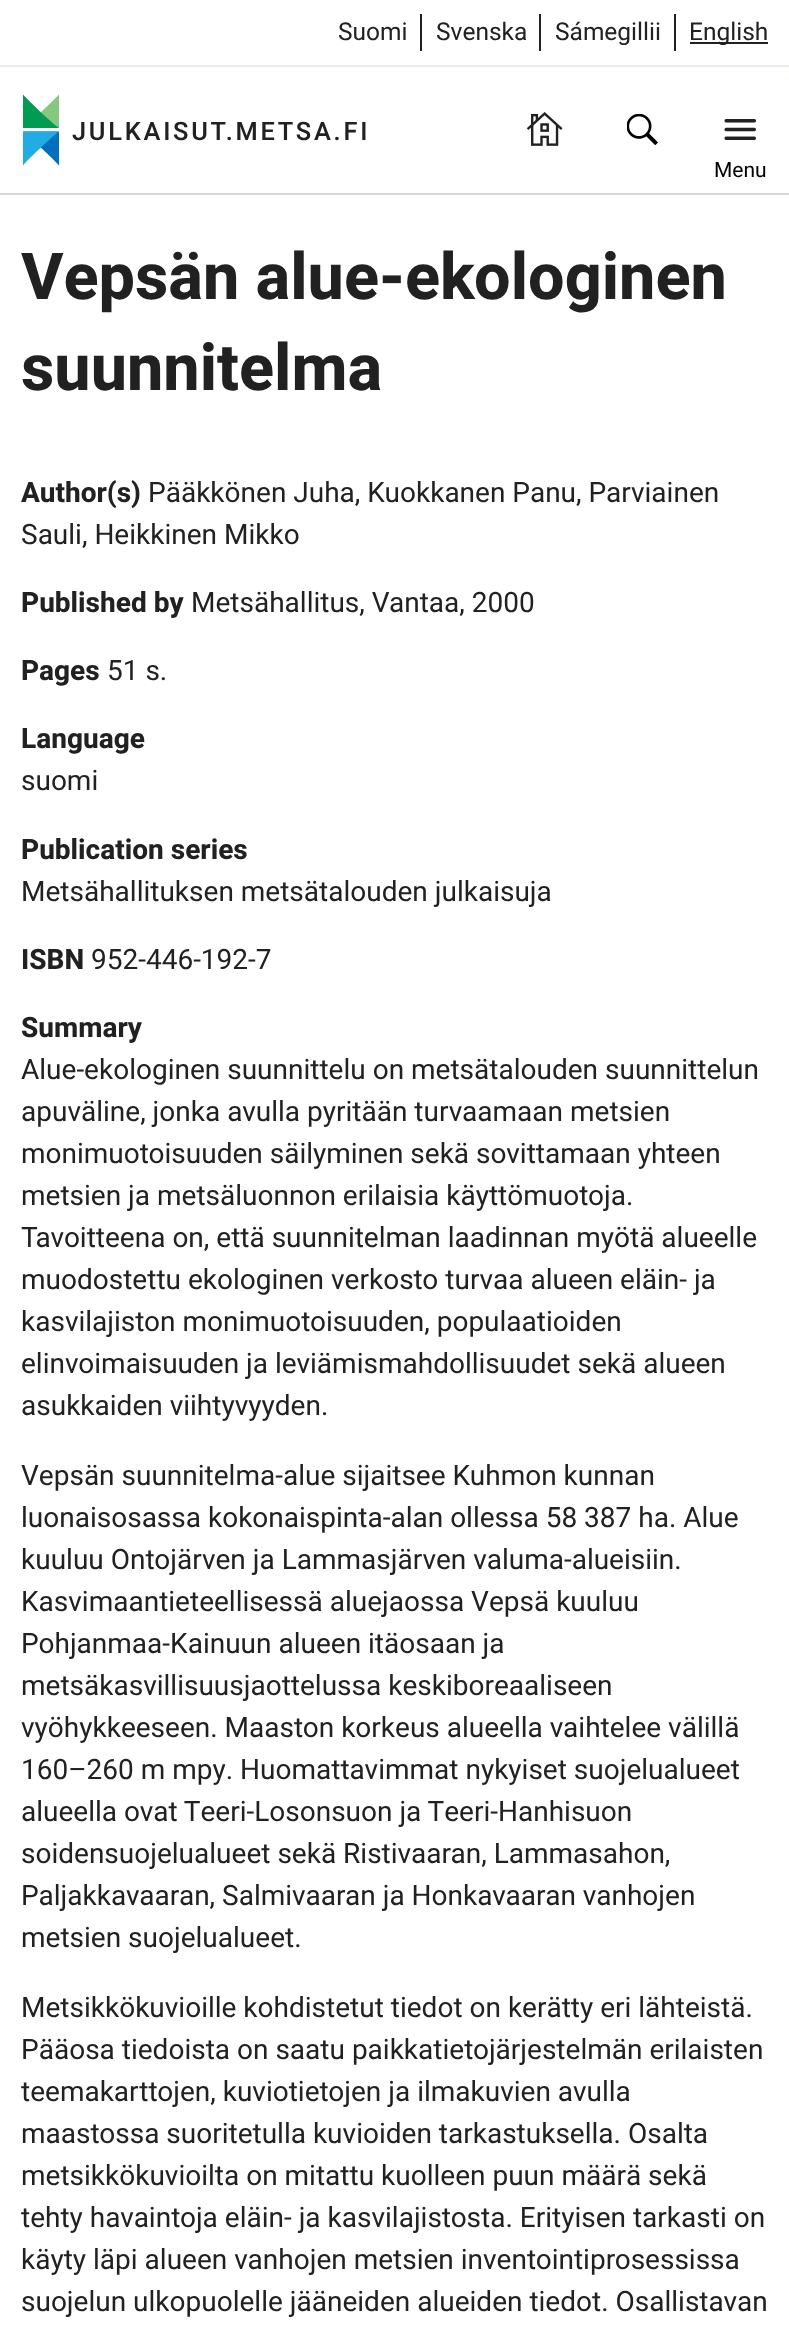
(async () => {
  const canvas = document.querySelector("canvas");
  canvas.width = 789;
  canvas.height = 2329;
  const ctx = canvas.getContext("2d");
  ctx.miterLimit = 4;
  ctx.fontKerning = "normal";
  async function loadImage(src) {
    const img = new Image();
    img.src = src;
    await img.decode();
    return img;
  }
  let path;

  ctx.fillStyle = "#ffffff";
  ctx.fillRect(0, 0, 789, 2329);
  for (const [x, y, w, h, color] of [
    [0, 193, 789, 2, "#d8d8d8"],
    [0, 65, 789, 2, "#efece7"],
    [420, 14, 2, 37, "#212121"],
    [539, 14, 2, 37, "#212121"],
    [674, 14, 2, 37, "#212121"],
    [690, 42, 78, 2, "#212121"],
  ]) {
    ctx.fillStyle = color;
    ctx.fillRect(x, y, w, h);
  }
  ctx.fillStyle = "#86c87f";
  path = new Path2D("M59 94.5C53 101 30.5 122.5 23 128H59Z");
  ctx.fill(path);
  ctx.fillStyle = "#009c53";
  path = new Path2D("M23 94.5C29 101 51 122.5 59 128H23Z");
  ctx.fill(path);
  ctx.fillStyle = "#0070ba";
  path = new Path2D("M59 165.5C53 158.5 30.5 137.5 23 131.5H59Z");
  ctx.fill(path);
  ctx.fillStyle = "#21ade4";
  path = new Path2D("M23 165.5C29 158.5 51 137.5 59 131.5H23Z");
  ctx.fill(path);
  ctx.drawImage(await loadImage("img/1.png"), 526, 112, 37, 34);
  ctx.drawImage(await loadImage("img/2.png"), 627, 114, 31, 31);
  ctx.drawImage(await loadImage("img/3.png"), 724, 119, 32, 21);
  ctx.font = "24.5px Heebo";
  ctx.fillStyle = "#212121";
  for (const [text, x, y] of [
    ["Suomi", 338, 40],
    ["Svenska", 436, 40],
    ["Sámegillii", 555, 40],
    ["English", 689, 40],
  ]) {
    ctx.fillText(text, x, y);
  }
  ctx.letterSpacing = "2.75px";
  ctx.font = "500 25.4px Heebo";
  ctx.fillText("JULKAISUT.METSA.FI", 72, 140);
  ctx.letterSpacing = "0px";
  ctx.font = "21px Heebo";
  ctx.fillStyle = "#000000";
  ctx.fillText("Menu", 714, 177);
  ctx.font = "bold 64.75px Heebo";
  ctx.fillStyle = "#212121";
  ctx.fillText("Vepsän alue-ekologinen", 21, 299);
  ctx.fillText("suunnitelma", 21, 390);
  ctx.font = "bold 28px Heebo";
  ctx.fillText("Author(s)", 21, 502);
  ctx.font = "28px Heebo";
  ctx.fillText("Pääkkönen Juha, Kuokkanen Panu, Parviainen", 148, 502);
  ctx.fillText("Sauli, Heikkinen Mikko", 21, 544);
  ctx.font = "bold 28px Heebo";
  ctx.fillText("Published by", 21, 612);
  ctx.font = "28px Heebo";
  ctx.fillText("Metsähallitus, Vantaa, 2000", 191, 612);
  ctx.font = "bold 28px Heebo";
  ctx.fillText("Pages", 21, 680);
  ctx.font = "28px Heebo";
  ctx.fillText("51 s.", 107, 680);
  ctx.font = "bold 28px Heebo";
  ctx.fillText("Language", 21, 748);
  ctx.font = "28px Heebo";
  ctx.fillText("suomi", 21, 790);
  ctx.font = "bold 28px Heebo";
  ctx.fillText("Publication series", 21, 859);
  ctx.font = "28px Heebo";
  ctx.fillText("Metsähallituksen metsätalouden julkaisuja", 21, 901);
  ctx.font = "bold 28px Heebo";
  ctx.fillText("ISBN", 21, 969);
  ctx.font = "28px Heebo";
  ctx.fillText("952-446-192-7", 91, 969);
  ctx.font = "bold 28px Heebo";
  ctx.fillText("Summary", 21, 1037);
  ctx.font = "28px Heebo";
  for (const [text, x, y] of [
    ["Alue-ekologinen suunnittelu on metsätalouden suunnittelun", 21, 1079],
    ["apuväline, jonka avulla pyritään turvaamaan metsien", 21, 1121],
    ["monimuotoisuuden säilyminen sekä sovittamaan yhteen", 21, 1163],
    ["metsien ja metsäluonnon erilaisia käyttömuotoja.", 21, 1205],
    ["Tavoitteena on, että suunnitelman laadinnan myötä alueelle", 21, 1247],
    ["muodostettu ekologinen verkosto turvaa alueen eläin- ja", 21, 1289],
    ["kasvilajiston monimuotoisuuden, populaatioiden", 21, 1331],
    ["elinvoimaisuuden ja leviämismahdollisuudet sekä alueen", 21, 1373],
    ["asukkaiden viihtyvyyden.", 21, 1415],
    ["Vepsän suunnitelma-alue sijaitsee Kuhmon kunnan", 21, 1485],
    ["luonaisosassa kokonaispinta-alan ollessa 58 387 ha. Alue", 21, 1527],
    ["kuuluu Ontojärven ja Lammasjärven valuma-alueisiin.", 21, 1569],
    ["Kasvimaantieteellisessä aluejaossa Vepsä kuuluu", 21, 1611],
    ["Pohjanmaa-Kainuun alueen itäosaan ja", 21, 1653],
    ["metsäkasvillisuusjaottelussa keskiboreaaliseen", 21, 1695],
    ["vyöhykkeeseen. Maaston korkeus alueella vaihtelee välillä", 21, 1737],
    ["160–260 m mpy. Huomattavimmat nykyiset suojelualueet", 21, 1779],
    ["alueella ovat Teeri-Losonsuon ja Teeri-Hanhisuon", 21, 1821],
    ["soidensuojelualueet sekä Ristivaaran, Lammasahon,", 21, 1863],
    ["Paljakkavaaran, Salmivaaran ja Honkavaaran vanhojen", 21, 1905],
    ["metsien suojelualueet.", 21, 1947],
    ["Metsikkökuvioille kohdistetut tiedot on kerätty eri lähteistä.", 21, 2017],
    ["Pääosa tiedoista on saatu paikkatietojärjestelmän erilaisten", 21, 2059],
    ["teemakarttojen, kuviotietojen ja ilmakuvien avulla", 21, 2101],
    ["maastossa suoritetulla kuvioiden tarkastuksella. Osalta", 21, 2143],
    ["metsikkökuvioilta on mitattu kuolleen puun määrä sekä", 21, 2185],
    ["tehty havaintoja eläin- ja kasvilajistosta. Erityisen tarkasti on", 21, 2227],
    ["käyty läpi alueen vanhojen metsien inventointiprosessissa", 21, 2269],
    ["suojelun ulkopuolelle jääneiden alueiden tiedot. Osallistavan", 21, 2311],
  ]) {
    ctx.fillText(text, x, y);
  }
})();
